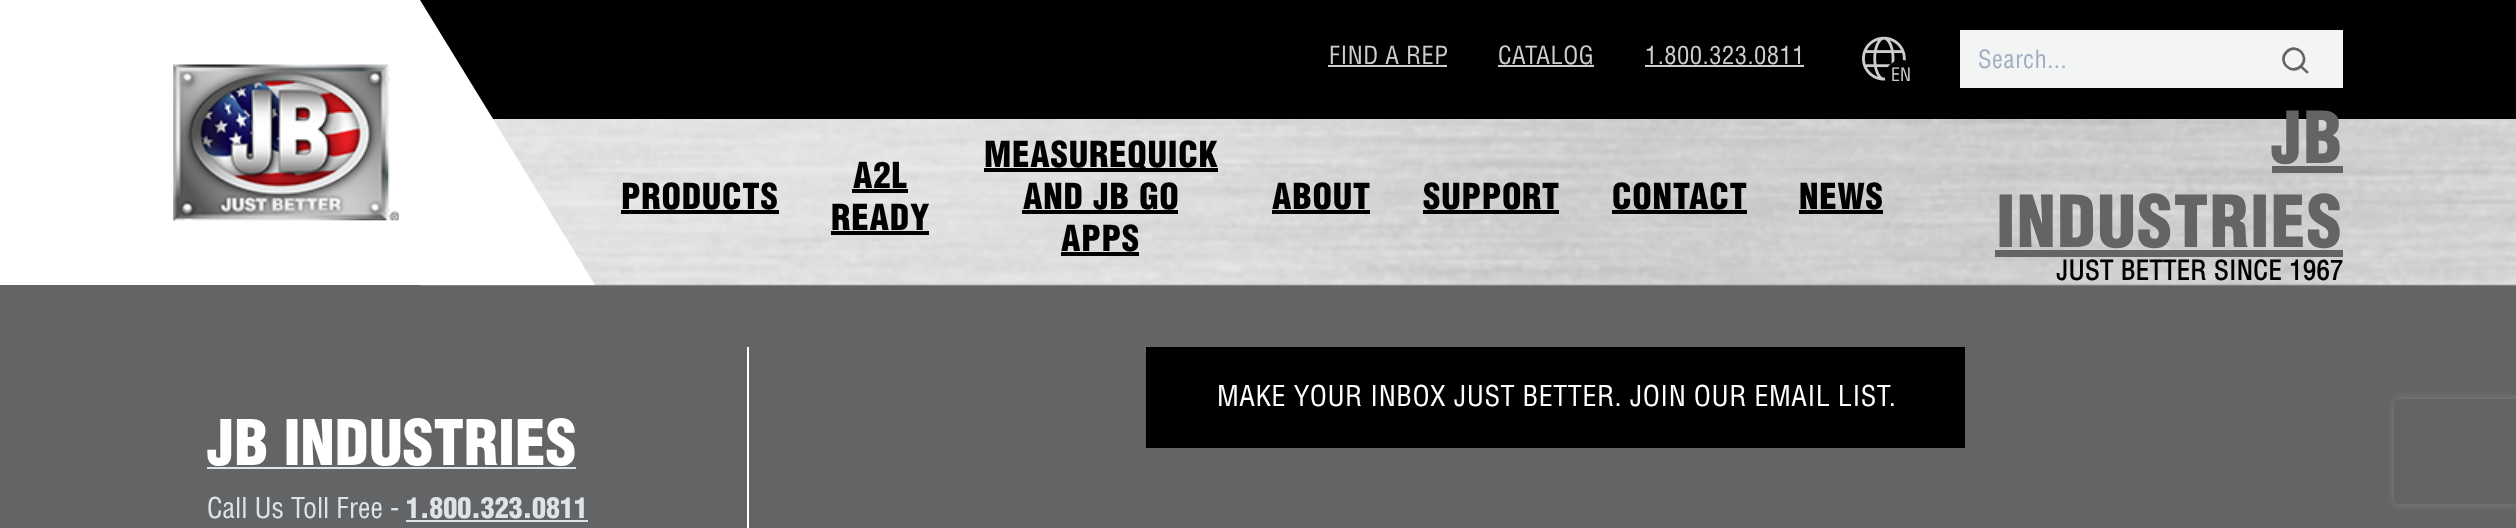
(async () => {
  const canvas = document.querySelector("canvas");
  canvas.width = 2516;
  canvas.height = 528;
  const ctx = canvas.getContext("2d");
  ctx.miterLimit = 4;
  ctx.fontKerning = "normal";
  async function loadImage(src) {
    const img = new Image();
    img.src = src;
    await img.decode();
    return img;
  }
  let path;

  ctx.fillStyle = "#626466";
  ctx.fillRect(0, 0, 2516, 528);
  ctx.fillStyle = "#ffffff";
  ctx.fillRect(0, 0, 420, 285);
  ctx.drawImage(await loadImage("img/1.png"), 173, 64, 226, 157);
  ctx.drawImage(await loadImage("img/2.png"), 420, 119, 2096, 167);
  ctx.fillStyle = "#000000";
  ctx.fillRect(420, 0, 2096, 119);
  ctx.fillStyle = "#ffffff";
  path = new Path2D("M420 0V285H595Z");
  ctx.fill(path);
  for (const [x, y, w, h, color] of [
    [1328, 65, 119, 2, "#cccdce"],
    [1498, 65, 96, 2, "#cccdce"],
    [1645, 65, 159, 2, "#cccdce"],
    [1960, 30, 383, 58, "#f3f4f4"],
  ]) {
    ctx.fillStyle = color;
    ctx.fillRect(x, y, w, h);
  }
  path = new Path2D("M2301.5 67L2307 72");
  ctx.strokeStyle = "#626466";
  ctx.lineWidth = 2.6;
  ctx.lineCap = "square";
  ctx.stroke(path);
  path = new Path2D("M2286.5 52C2296 42 2310.5 56.5 2301 66C2291.5 76 2277 61.5 2286.5 52Z");
  ctx.lineCap = "butt";
  ctx.stroke(path);
  ctx.drawImage(await loadImage("img/3.png"), 1862, 36, 44, 45);
  ctx.fillStyle = "#000000";
  ctx.beginPath();
  ctx.roundRect(1885, 60, 33, 35, 16.5);
  ctx.fill();
  for (const [x, y, w, h, color] of [
    [621, 210, 158, 4, "#000000"],
    [852, 189, 56, 4, "#000000"],
    [831, 231, 98, 4, "#000000"],
    [984, 168, 234, 4, "#000000"],
    [1022, 210, 156, 4, "#000000"],
    [1061, 252, 78, 4, "#000000"],
    [1272, 210, 98, 4, "#000000"],
    [1423, 210, 136, 4, "#000000"],
    [1612, 210, 135, 4, "#000000"],
    [1799, 210, 84, 4, "#000000"],
    [2272, 166, 71, 7, "#626466"],
    [1995, 250, 348, 7, "#626466"],
    [1146, 347, 819, 101, "#000000"],
    [747, 347, 2, 181, "#ffffff"],
    [207, 467, 369, 2, "#e0e3e6"],
    [406, 520, 182, 2, "#e0e3e6"],
  ]) {
    ctx.fillStyle = color;
    ctx.fillRect(x, y, w, h);
  }
  ctx.save();
  path = new Path2D("M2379 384H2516V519H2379ZM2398 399H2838C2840 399 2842 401 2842 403V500C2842 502 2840 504 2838 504H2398C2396 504 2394 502 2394 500V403C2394 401 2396 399 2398 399Z");
  ctx.clip(path, "evenodd");
  ctx.fillStyle = "#808080";
  ctx.filter = "blur(4.5px)";
  ctx.beginPath();
  ctx.roundRect(2394, 399, 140, 105, 4);
  ctx.fill();
  ctx.filter = "none";
  ctx.restore();
  ctx.letterSpacing = "0.5px";
  ctx.font = "24.5px Helvetica";
  ctx.fillStyle = "#cccdce";
  for (const [text, x, y] of [
    ["FIND A REP", 1329, 64],
    ["CATALOG", 1498, 64],
    ["1.800.323.0811", 1645, 64],
  ]) {
    ctx.fillText(text, x, y);
  }
  ctx.fillStyle = "#a0aec0";
  ctx.fillText("Search...", 1978, 68);
  ctx.letterSpacing = "0px";
  ctx.font = "18px Helvetica";
  ctx.fillStyle = "#cccdce";
  ctx.fillText("EN", 1891, 81);
  ctx.letterSpacing = "0.75px";
  ctx.font = "900 35px Helvetica";
  ctx.fillStyle = "#000000";
  for (const [text, x, y] of [
    ["PRODUCTS", 621, 209],
    ["A2L", 853, 188],
    ["READY", 831, 230],
    ["MEASUREQUICK", 984, 167],
    ["AND JB GO", 1023, 209],
    ["APPS", 1061, 251],
    ["ABOUT", 1272, 209],
    ["SUPPORT", 1423, 209],
    ["CONTACT", 1612, 209],
    ["NEWS", 1799, 209],
  ]) {
    ctx.fillText(text, x, y);
  }
  ctx.letterSpacing = "1.25px";
  ctx.font = "900 70px Helvetica";
  ctx.fillStyle = "#626466";
  ctx.fillText("JB", 2271, 163);
  ctx.fillText("INDUSTRIES", 1996, 247);
  ctx.letterSpacing = "0.5px";
  ctx.font = "bold 26.25px Helvetica";
  ctx.fillStyle = "#000000";
  ctx.fillText("JUST BETTER SINCE 1967", 2056, 280);
  ctx.letterSpacing = "0.55px";
  ctx.font = "28px Helvetica";
  ctx.fillStyle = "#ffffff";
  ctx.fillText("MAKE YOUR INBOX JUST BETTER. JOIN OUR EMAIL LIST.", 1217, 406);
  ctx.letterSpacing = "0px";
  ctx.font = "900 61.25px Helvetica";
  ctx.fillText("JB INDUSTRIES", 207, 465);
  ctx.font = "28px Helvetica";
  ctx.fillStyle = "#e0e3e6";
  ctx.fillText("Call Us Toll Free -", 207, 518);
  ctx.font = "900 28px Helvetica";
  ctx.fillText("1.800.323.0811", 406, 518);
})();
